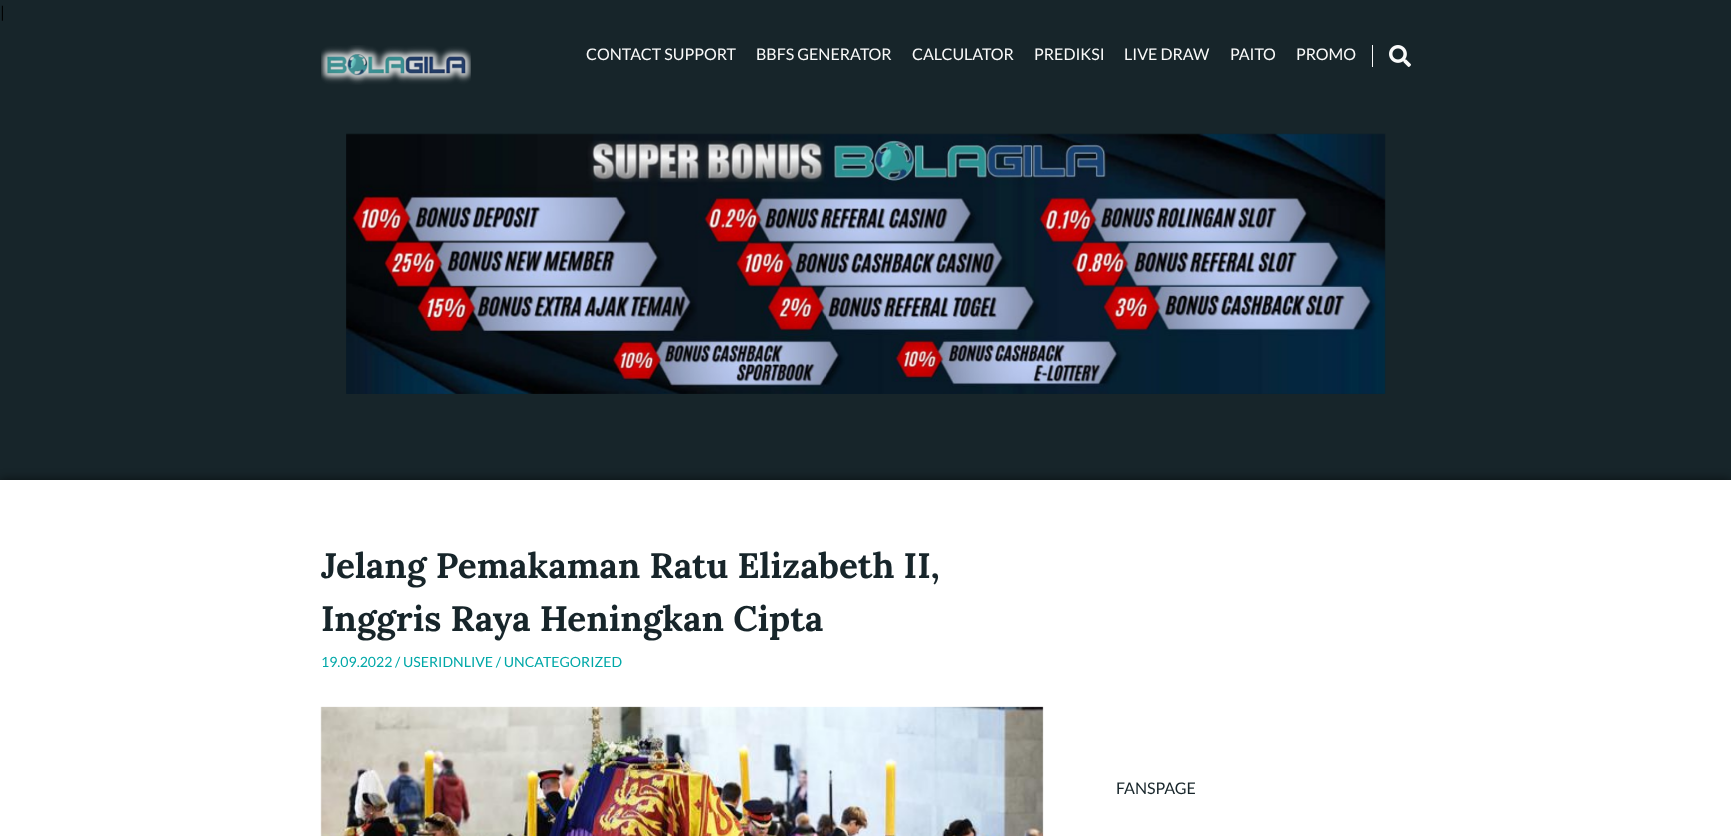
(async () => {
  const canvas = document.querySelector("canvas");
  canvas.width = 1731;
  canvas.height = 836;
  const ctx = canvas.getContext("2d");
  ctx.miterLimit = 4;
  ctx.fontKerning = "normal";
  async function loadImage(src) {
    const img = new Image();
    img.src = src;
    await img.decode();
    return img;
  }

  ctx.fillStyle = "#17252a";
  ctx.fillRect(0, 0, 1731, 836);
  ctx.drawImage(await loadImage("img/1.png"), 321, 45, 150, 40);
  ctx.fillStyle = "#fafafa";
  ctx.fillRect(1372, 45, 1, 22);
  ctx.drawImage(await loadImage("img/2.png"), 1389, 45, 22, 22);
  ctx.drawImage(await loadImage("img/3.png"), 346, 133, 1040, 261);
  ctx.fillStyle = "rgba(0, 0, 0, 0.5)";
  ctx.filter = "blur(5px)";
  ctx.beginPath();
  ctx.rect(0, 479, 1731, 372);
  ctx.fill();
  ctx.filter = "none";
  ctx.fillStyle = "#ffffff";
  ctx.fillRect(0, 480, 1731, 356);
  ctx.drawImage(await loadImage("img/4.png"), 320, 706, 724, 130);
  ctx.font = "16px Lato";
  ctx.fillStyle = "#000000";
  ctx.fillText("|", 0, 18);
  ctx.fillStyle = "#fafafa";
  for (const [text, x, y] of [
    ["CONTACT SUPPORT", 586, 60],
    ["BBFS GENERATOR", 756, 60],
    ["CALCULATOR", 912, 60],
    ["PREDIKSI", 1034, 60],
    ["LIVE DRAW", 1124, 60],
    ["PAITO", 1230, 60],
    ["PROMO", 1296, 60],
  ]) {
    ctx.fillText(text, x, y);
  }
  ctx.font = "bold 35.25px Lora";
  ctx.fillStyle = "#17252a";
  ctx.fillText("Jelang Pemakaman Ratu Elizabeth II,", 321, 578);
  ctx.fillText("Inggris Raya Heningkan Cipta", 321, 631);
  ctx.font = "14.1px Lato";
  ctx.fillStyle = "#00a8a8";
  ctx.fillText("19.09.2022 / USERIDNLIVE / UNCATEGORIZED", 321, 667);
  ctx.font = "16px Lato";
  ctx.fillStyle = "#17252a";
  ctx.fillText("FANSPAGE", 1116, 794);
})();
